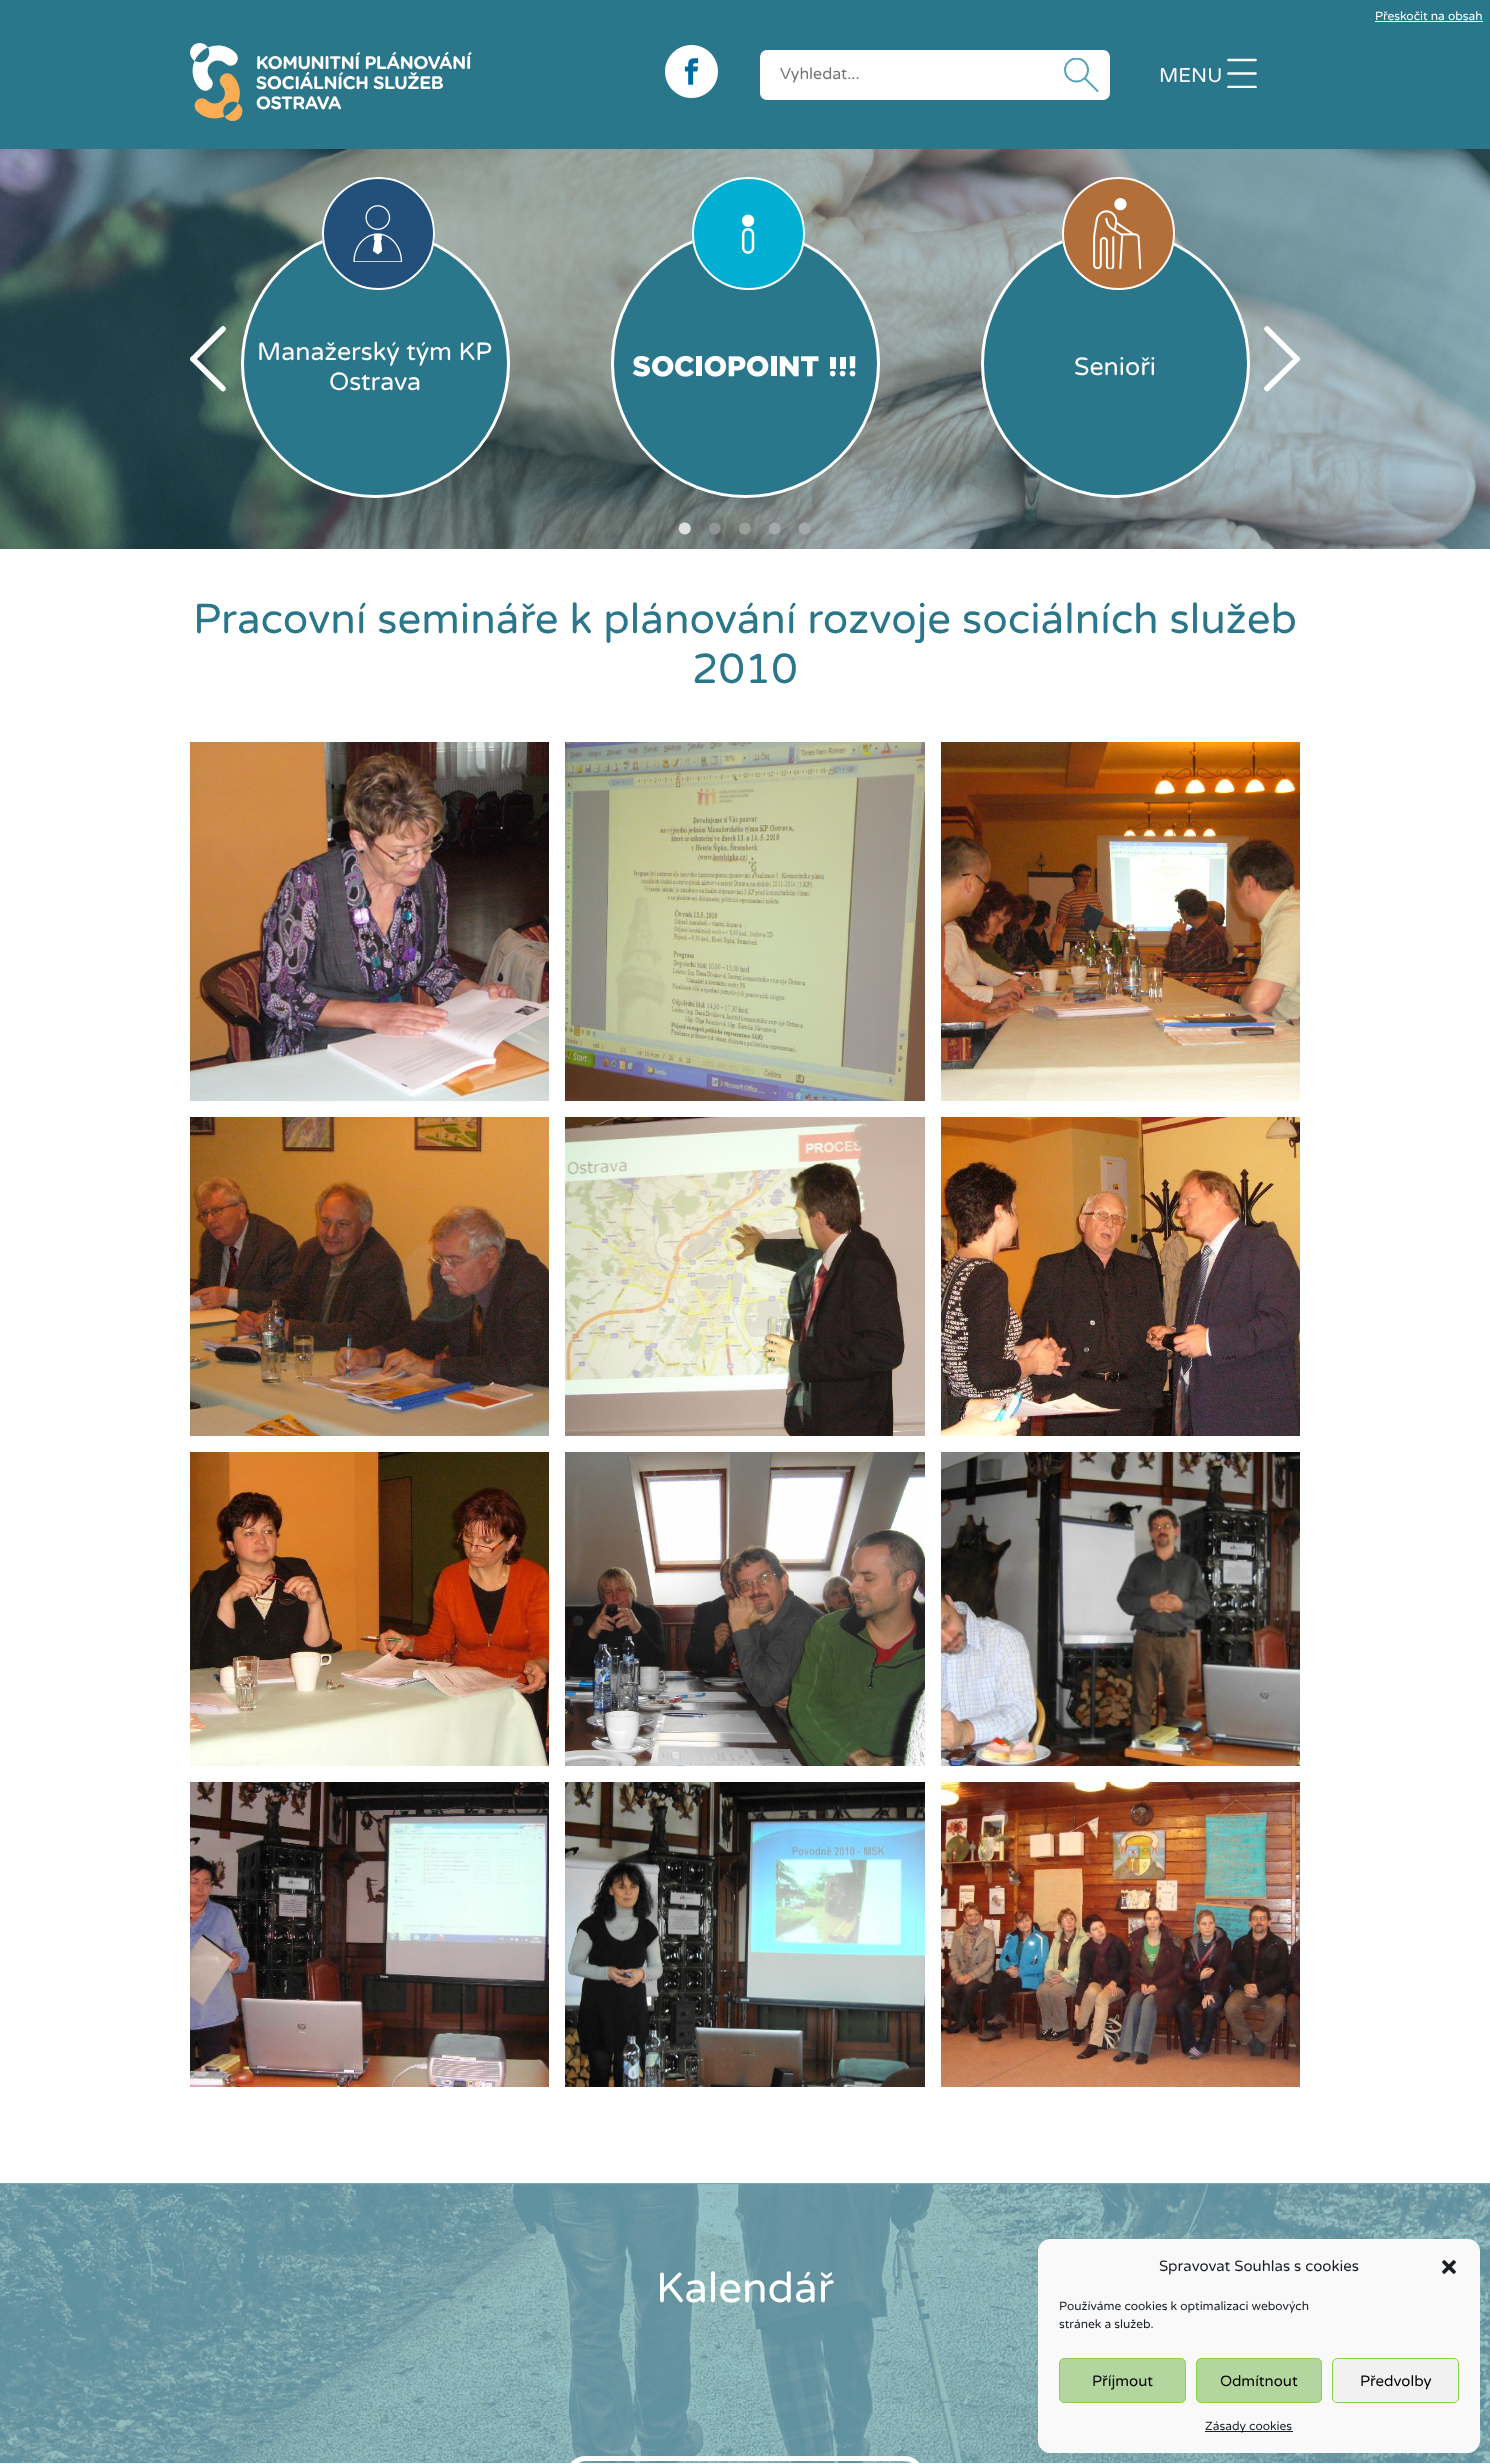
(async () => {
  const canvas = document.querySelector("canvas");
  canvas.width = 1490;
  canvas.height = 2463;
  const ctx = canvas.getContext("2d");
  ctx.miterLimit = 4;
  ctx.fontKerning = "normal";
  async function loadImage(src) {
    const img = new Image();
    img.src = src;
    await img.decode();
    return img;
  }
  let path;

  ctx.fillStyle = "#ffffff";
  ctx.fillRect(0, 0, 1490, 2463);
  for (const [x, y, w, h, color] of [
    [0, 2183, 1490, 280, "#95c6d3"],
    [0, 0, 1490, 549, "#2a768b"],
    [1375, 21, 108, 1, "#ffffff"],
  ]) {
    ctx.fillStyle = color;
    ctx.fillRect(x, y, w, h);
  }
  ctx.drawImage(await loadImage("img/1.png"), 190, 43, 282, 78);
  ctx.drawImage(await loadImage("img/2.png"), 665, 45, 53, 53);
  ctx.beginPath();
  ctx.roundRect(760, 50, 350, 50, 7);
  ctx.fill();
  ctx.save();
  ctx.beginPath();
  ctx.rect(1064, 58, 35, 34);
  ctx.clip();
  ctx.beginPath();
  ctx.arc(1076.5, 70, 11.5, 0, Math.PI * 2);
  ctx.strokeStyle = "#56a6bb";
  ctx.lineWidth = 2;
  ctx.stroke();
  ctx.restore();
  path = new Path2D("M1085.5 79L1097.5 91");
  ctx.strokeStyle = "#56a6bb";
  ctx.lineWidth = 2;
  ctx.lineCap = "round";
  ctx.stroke(path);
  path = new Path2D("M1228.5 60H1255.5M1228.5 73.5H1255.5");
  ctx.strokeStyle = "#ffffff";
  ctx.lineWidth = 2.7;
  ctx.stroke(path);
  ctx.save();
  ctx.beginPath();
  ctx.rect(1227, 58, 30, 30);
  ctx.clip();
  path = new Path2D("M1228.5 87H1255.5");
  ctx.stroke(path);
  ctx.restore();
  ctx.drawImage(await loadImage("img/3.png"), 0, 149, 1490, 400);
  path = new Path2D("M223 329L193 359");
  ctx.lineWidth = 5.5;
  ctx.stroke(path);
  path = new Path2D("M223 388.5L193 359");
  ctx.stroke(path);
  ctx.fillStyle = "#2a768b";
  ctx.beginPath();
  ctx.arc(375.5, 363.5, 133, 0, Math.PI * 2);
  ctx.fill();
  ctx.lineWidth = 3;
  ctx.stroke();
  ctx.fillStyle = "#234f7b";
  ctx.beginPath();
  ctx.arc(378.5, 233.5, 56.5, 0, Math.PI * 2);
  ctx.fill();
  ctx.drawImage(await loadImage("img/4.png"), 353, 205, 50, 57);
  ctx.beginPath();
  ctx.arc(378.5, 233.5, 55.5, 0, Math.PI * 2);
  ctx.lineWidth = 2;
  ctx.stroke();
  ctx.fillStyle = "#2a768b";
  ctx.beginPath();
  ctx.arc(745.5, 363.5, 133, 0, Math.PI * 2);
  ctx.fill();
  ctx.lineWidth = 3;
  ctx.stroke();
  ctx.fillStyle = "#00afd2";
  ctx.beginPath();
  ctx.arc(748.5, 233.5, 56.5, 0, Math.PI * 2);
  ctx.fill();
  ctx.drawImage(await loadImage("img/5.png"), 741, 214, 14, 40);
  ctx.beginPath();
  ctx.arc(748.5, 233.5, 55.5, 0, Math.PI * 2);
  ctx.lineWidth = 2;
  ctx.stroke();
  ctx.drawImage(await loadImage("img/6.png"), 632, 355, 224, 22);
  ctx.fillStyle = "#2a768b";
  ctx.beginPath();
  ctx.arc(1115.5, 363.5, 133, 0, Math.PI * 2);
  ctx.fill();
  ctx.lineWidth = 3;
  ctx.stroke();
  ctx.fillStyle = "#b36f39";
  ctx.beginPath();
  ctx.arc(1118.5, 233.5, 56.5, 0, Math.PI * 2);
  ctx.fill();
  ctx.drawImage(await loadImage("img/7.png"), 1093, 198, 49, 71);
  ctx.beginPath();
  ctx.arc(1118.5, 233.5, 55.5, 0, Math.PI * 2);
  ctx.lineWidth = 2;
  ctx.stroke();
  path = new Path2D("M1267 388.5L1297 359");
  ctx.lineWidth = 5.5;
  ctx.stroke(path);
  path = new Path2D("M1267 329L1297 359");
  ctx.stroke(path);
  ctx.drawImage(await loadImage("img/8.png"), 190, 742, 359, 359);
  ctx.drawImage(await loadImage("img/9.png"), 565, 742, 360, 359);
  ctx.drawImage(await loadImage("img/10.png"), 941, 742, 359, 359);
  ctx.drawImage(await loadImage("img/11.png"), 190, 1117, 359, 319);
  ctx.drawImage(await loadImage("img/12.png"), 565, 1117, 360, 319);
  ctx.drawImage(await loadImage("img/13.png"), 941, 1117, 359, 319);
  ctx.drawImage(await loadImage("img/14.png"), 190, 1452, 359, 314);
  ctx.drawImage(await loadImage("img/15.png"), 565, 1452, 360, 314);
  ctx.drawImage(await loadImage("img/16.png"), 941, 1452, 359, 314);
  ctx.drawImage(await loadImage("img/17.png"), 190, 1782, 359, 305);
  ctx.drawImage(await loadImage("img/18.png"), 565, 1782, 360, 305);
  ctx.drawImage(await loadImage("img/19.png"), 941, 1782, 359, 305);
  ctx.drawImage(await loadImage("img/20.png"), 0, 2183, 1490, 280);
  ctx.beginPath();
  ctx.roundRect(568.5, 2458.5, 353, 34, 24.5);
  ctx.lineWidth = 5;
  ctx.stroke();
  ctx.fillStyle = "#f9f9f9";
  ctx.beginPath();
  ctx.roundRect(1038.5, 2239.5, 441, 213, 11.5);
  ctx.fill();
  ctx.strokeStyle = "#f9f9f9";
  ctx.lineWidth = 1;
  ctx.stroke();
  ctx.drawImage(await loadImage("img/21.png"), 1442, 2260, 14, 14);
  ctx.fillStyle = "#b2d69e";
  ctx.beginPath();
  ctx.roundRect(1059.5, 2358.5, 126, 44, 4.5);
  ctx.fill();
  ctx.strokeStyle = "#81d742";
  ctx.stroke();
  ctx.beginPath();
  ctx.roundRect(1196.5, 2358.5, 125, 44, 4.5);
  ctx.fill();
  ctx.stroke();
  ctx.fillStyle = "#f1f1f1";
  ctx.beginPath();
  ctx.roundRect(1332.5, 2358.5, 126, 44, 4.5);
  ctx.fill();
  ctx.stroke();
  ctx.fillStyle = "#191e23";
  ctx.fillRect(1205, 2431, 88, 1);
  ctx.font = "12px Varela Round";
  ctx.fillStyle = "#ffffff";
  ctx.fillText("Přeskočit na obsah", 1375, 20);
  ctx.font = "16px Varela Round";
  ctx.fillStyle = "#757575";
  ctx.fillText("Vyhledat...", 780, 79);
  ctx.font = "20px Varela Round";
  ctx.fillStyle = "#ffffff";
  ctx.fillText("MENU", 1159, 82);
  ctx.font = "25px Varela Round";
  for (const [text, x, y] of [
    ["Manažerský tým KP", 257, 360],
    ["Ostrava", 329, 390],
    ["Senioři", 1074, 375],
  ]) {
    ctx.fillText(text, x, y);
  }
  ctx.font = "50px Liberation Serif";
  ctx.fillStyle = "#dde1e0";
  ctx.fillText("•", 676, 545);
  ctx.fillStyle = "#909593";
  ctx.fillText("•", 706, 545);
  ctx.fillStyle = "#9a9f9b";
  ctx.fillText("•", 736, 545);
  ctx.fillStyle = "#a5abaa";
  ctx.fillText("•", 766, 545);
  ctx.fillText("•", 796, 545);
  ctx.font = "42px Varela Round";
  ctx.fillStyle = "#2a768b";
  ctx.fillText("Pracovní semináře k plánování rozvoje sociálních služeb", 193, 633);
  ctx.fillText("2010", 692, 683);
  ctx.fillStyle = "#ffffff";
  ctx.fillText("Kalendář", 656, 2302);
  ctx.font = "15px Varela Round";
  ctx.fillStyle = "#191e23";
  ctx.fillText("Spravovat Souhlas s cookies", 1159, 2271);
  ctx.font = "12px Varela Round";
  ctx.fillText("Používáme cookies k optimalizaci webových", 1059, 2310);
  ctx.fillText("stránek a služeb.", 1059, 2328);
  ctx.font = "15px Varela Round";
  ctx.fillStyle = "#000000";
  for (const [text, x, y] of [
    ["Příjmout", 1092, 2386],
    ["Odmítnout", 1220, 2386],
    ["Předvolby", 1360, 2386],
  ]) {
    ctx.fillText(text, x, y);
  }
  ctx.font = "12px Varela Round";
  ctx.fillStyle = "#191e23";
  ctx.fillText("Zásady cookies", 1205, 2430);
})();
